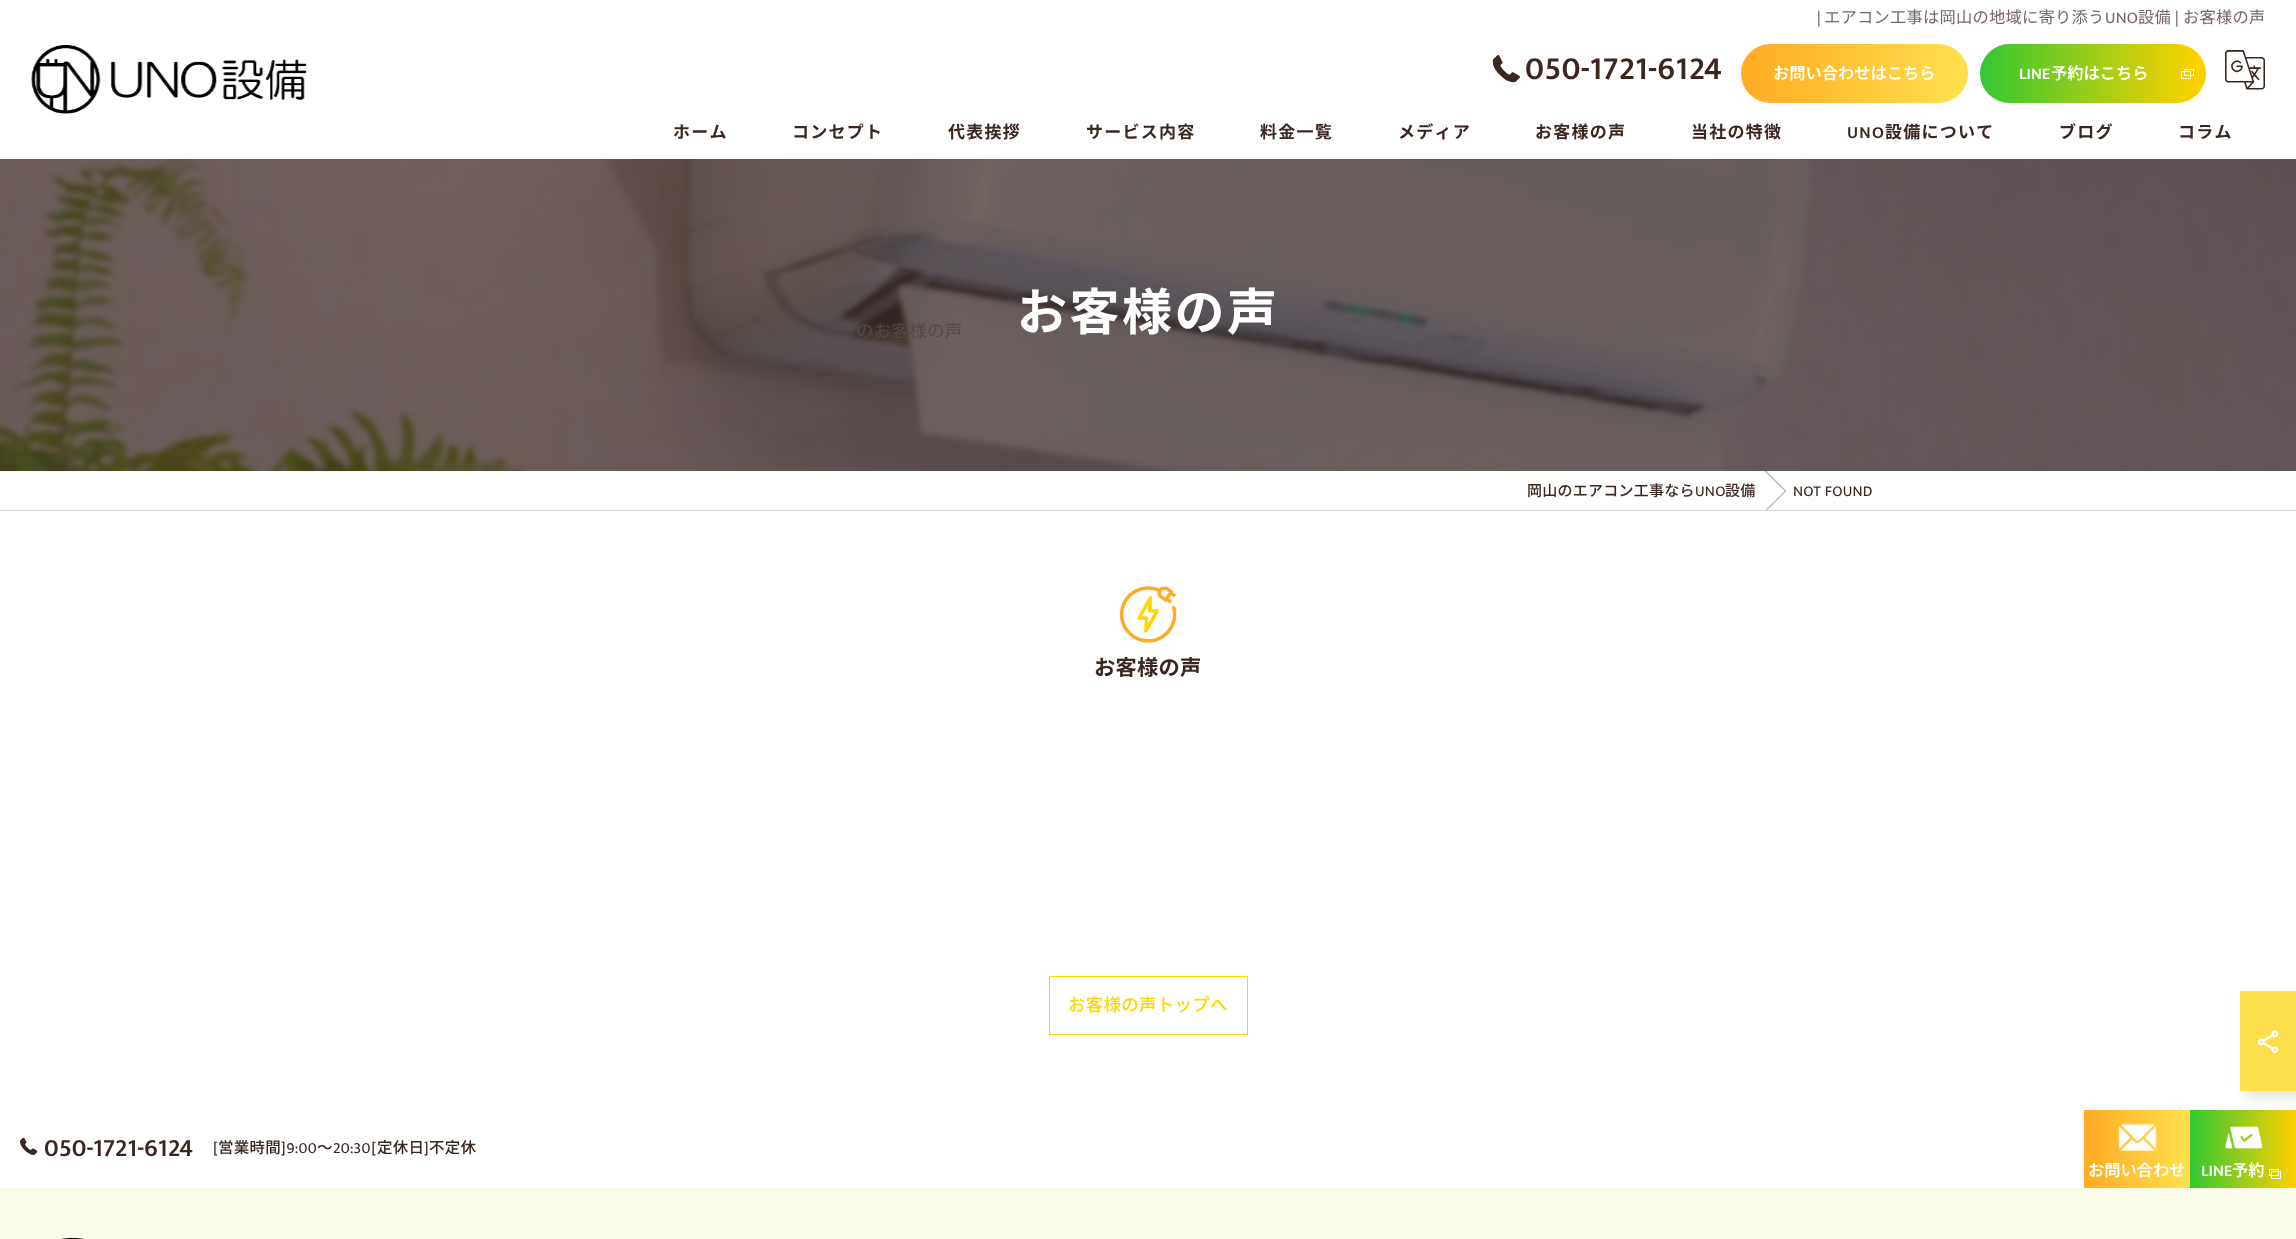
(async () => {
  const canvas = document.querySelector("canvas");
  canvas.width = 2296;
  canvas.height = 1239;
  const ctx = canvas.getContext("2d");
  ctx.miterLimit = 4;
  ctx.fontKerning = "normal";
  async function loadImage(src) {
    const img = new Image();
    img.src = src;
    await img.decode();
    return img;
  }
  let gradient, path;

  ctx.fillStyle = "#ffffff";
  ctx.fillRect(0, 0, 2296, 1239);
  ctx.fillStyle = "#3b2620";
  ctx.fillRect(0, 159, 2296, 312);
  ctx.drawImage(await loadImage("img/4.png"), 0, 158, 2296, 314);
  ctx.fillStyle = "rgba(255, 255, 255, 0.8)";
  ctx.fillRect(167, 158, 2129, 1);
  ctx.drawImage(await loadImage("img/1.png"), 31, 45, 276, 69);
  ctx.drawImage(await loadImage("img/2.png"), 1492, 55, 28, 28);
  gradient = ctx.createLinearGradient(2191, 73, 1739, 73);
  gradient.addColorStop(0, "#ffdf4d");
  gradient.addColorStop(0.25, "#ffab23");
  gradient.addColorStop(0.51, "#ffdf4d");
  gradient.addColorStop(1, "#ffab23");
  ctx.fillStyle = gradient;
  ctx.beginPath();
  ctx.roundRect(1741, 44, 227, 59, 29.5);
  ctx.fill();
  gradient = ctx.createLinearGradient(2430, 73, 1978, 73);
  gradient.addColorStop(0, "#ffd101");
  gradient.addColorStop(0.25, "#33c733");
  gradient.addColorStop(0.51, "#ffd101");
  gradient.addColorStop(1, "#33c733");
  ctx.fillStyle = gradient;
  ctx.beginPath();
  ctx.roundRect(1980, 44, 226, 59, 29.5);
  ctx.fill();
  ctx.strokeStyle = "#ffffff";
  ctx.strokeRect(2181.5, 71.5, 9, 7);
  ctx.strokeRect(2184.5, 69.5, 9, 6);
  ctx.drawImage(await loadImage("img/3.png"), 2225, 50, 40, 40);
  ctx.fillStyle = "#d8d8d8";
  ctx.fillRect(0, 510, 2296, 1);
  ctx.save();
  ctx.beginPath();
  ctx.rect(1756, 471, 118, 39);
  ctx.clip();
  ctx.fillStyle = "rgba(125, 125, 125, 0.3)";
  path = new Path2D("M1759 463.5L1786.5 491H1784.5L1758 464.5Z");
  ctx.fill(path);
  path = new Path2D("M1759 463.5L1786.5 491H1784.5L1758 464.5Z");
  ctx.fill(path);
  ctx.fillStyle = "#c0c0c0";
  path = new Path2D("M1786.5 491L1759 518.5L1758 517.5L1784.5 491Z");
  ctx.fill(path);
  ctx.restore();
  ctx.drawImage(await loadImage("img/5.png"), 1120, 586, 57, 57);
  ctx.strokeStyle = "#ffd700";
  ctx.strokeRect(1049.5, 976.5, 198, 58);
  ctx.fillStyle = "#fbfbea";
  ctx.fillRect(0, 1110, 2296, 129);
  gradient = ctx.createLinearGradient(2296, 1149, 2190, 1149);
  gradient.addColorStop(0, "#ffd101");
  gradient.addColorStop(1, "#33c733");
  ctx.fillStyle = gradient;
  ctx.fillRect(2190, 1110, 106, 78);
  ctx.fillStyle = "rgba(0, 0, 0, 0.1)";
  ctx.filter = "blur(6px)";
  ctx.beginPath();
  ctx.rect(2246, 998, 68, 100);
  ctx.fill();
  ctx.filter = "none";
  ctx.fillStyle = "#ffdf4d";
  ctx.fillRect(2240, 991, 56, 100);
  ctx.drawImage(await loadImage("img/6.png"), 2258, 1030, 21, 24);
  ctx.fillStyle = "#ffffff";
  ctx.fillRect(0, 1110, 2083, 78);
  ctx.drawImage(await loadImage("img/7.png"), 20, 1137, 18, 18);
  gradient = ctx.createLinearGradient(2295, 1149, 2083, 1149);
  gradient.addColorStop(0, "#ffdf4d");
  gradient.addColorStop(0.25, "#ffab23");
  gradient.addColorStop(0.51, "#ffdf4d");
  gradient.addColorStop(1, "#ffab23");
  ctx.fillStyle = gradient;
  ctx.fillRect(2084, 1110, 106, 78);
  ctx.drawImage(await loadImage("img/8.png"), 2118, 1123, 39, 28);
  ctx.drawImage(await loadImage("img/9.png"), 2225, 1126, 38, 23);
  ctx.strokeStyle = "#ffffff";
  ctx.strokeRect(2271.5, 1171.5, 9, 7);
  ctx.strokeRect(2269.5, 1169.5, 9, 6);
  ctx.drawImage(await loadImage("img/10.png"), 61, 1238, 23, 1);
  ctx.letterSpacing = "0.25px";
  ctx.font = "16.25px Mukta";
  ctx.fillStyle = "#766763";
  ctx.fillText("|", 1817, 23);
  ctx.font = "16.25px Noto Sans JP";
  ctx.fillText("エアコン工事は岡山の地域に寄り添う", 1824, 23);
  ctx.font = "16.25px Mukta";
  ctx.fillText("UNO", 2105, 23);
  ctx.font = "16.25px Noto Sans JP";
  ctx.fillText("設備", 2138, 23);
  ctx.font = "16.25px Mukta";
  ctx.fillText("|", 2175, 23);
  ctx.font = "16.25px Noto Sans JP";
  ctx.fillText("お客様の声", 2183, 23);
  ctx.font = "600 32.5px Mukta";
  ctx.fillStyle = "#3b2620";
  ctx.fillText("050-1721-6124", 1525, 79);
  ctx.letterSpacing = "0px";
  ctx.font = "600 16.25px Noto Sans JP";
  ctx.fillStyle = "#ffffff";
  ctx.fillText("お問い合わせはこちら", 1773, 79);
  ctx.font = "600 16.25px Mukta";
  ctx.fillText("LINE", 2019, 79);
  ctx.font = "600 16.25px Noto Sans JP";
  ctx.fillText("予約はこちら", 2051, 79);
  ctx.letterSpacing = "1.25px";
  ctx.font = "bold 17px Noto Sans JP";
  ctx.fillStyle = "#3b2620";
  ctx.fillText("ホーム", 673, 138);
  ctx.fillText("コンセプト", 792, 138);
  ctx.letterSpacing = "0.25px";
  ctx.font = "17.5px Noto Sans JP";
  ctx.fillStyle = "#544948";
  ctx.fillText("のお客様の声", 856, 337);
  ctx.letterSpacing = "1.25px";
  ctx.font = "bold 17px Noto Sans JP";
  ctx.fillStyle = "#3b2620";
  for (const [text, x, y] of [
    ["代表挨拶", 948, 138],
    ["サービス内容", 1086, 138],
    ["料金一覧", 1260, 138],
    ["メディア", 1398, 138],
    ["お客様の声", 1535, 138],
    ["当社の特徴", 1691, 138],
  ]) {
    ctx.fillText(text, x, y);
  }
  ctx.font = "600 17px Mukta";
  ctx.fillText("UNO", 1847, 138);
  ctx.font = "bold 17px Noto Sans JP";
  for (const [text, x, y] of [
    ["設備について", 1885, 138],
    ["ブログ", 2059, 138],
    ["コラム", 2178, 138],
  ]) {
    ctx.fillText(text, x, y);
  }
  ctx.letterSpacing = "2.5px";
  ctx.font = "bold 50px Noto Sans JP";
  ctx.fillStyle = "#ffffff";
  ctx.fillText("お客様の声", 1017, 330);
  ctx.letterSpacing = "0.25px";
  ctx.font = "500 15px Noto Sans JP";
  ctx.fillStyle = "#3b2620";
  ctx.fillText("岡山のエアコン工事なら", 1527, 496);
  ctx.font = "15px Mukta";
  ctx.fillText("UNO", 1695, 496);
  ctx.font = "500 15px Noto Sans JP";
  ctx.fillText("設備", 1725, 496);
  ctx.font = "15px Mukta";
  ctx.fillText("NOT FOUND", 1793, 496);
  ctx.font = "bold 21.25px Noto Sans JP";
  ctx.fillText("お客様の声", 1094, 675);
  ctx.font = "500 17.5px Noto Sans JP";
  ctx.fillStyle = "#ffd700";
  ctx.fillText("お客様の声トップへ", 1068, 1011);
  ctx.letterSpacing = "0px";
  ctx.font = "600 25px Mukta";
  ctx.fillStyle = "#3b2620";
  ctx.fillText("050-1721-6124", 44, 1156);
  ctx.letterSpacing = "0.25px";
  ctx.font = "15.5px Mukta";
  ctx.fillText("[", 213, 1153);
  ctx.font = "500 15.5px Noto Sans JP";
  ctx.fillText("営業時間", 218, 1153);
  ctx.font = "15.5px Mukta";
  ctx.fillText("]9:00", 281, 1153);
  ctx.font = "500 15.5px Noto Sans JP";
  ctx.fillText("～", 317, 1153);
  ctx.font = "15.5px Mukta";
  ctx.fillText("20:30[", 333, 1153);
  ctx.font = "500 15.5px Noto Sans JP";
  ctx.fillText("定休日", 377, 1153);
  ctx.font = "15.5px Mukta";
  ctx.fillText("]", 424, 1153);
  ctx.font = "500 15.5px Noto Sans JP";
  ctx.fillText("不定休", 429, 1153);
  ctx.letterSpacing = "0px";
  ctx.font = "600 16.25px Noto Sans JP";
  ctx.fillStyle = "#ffffff";
  ctx.fillText("お問い合わせ", 2088, 1176);
  ctx.font = "600 16.25px Mukta";
  ctx.fillText("LINE", 2201, 1176);
  ctx.font = "600 16.25px Noto Sans JP";
  ctx.fillText("予約", 2232, 1176);
})();
